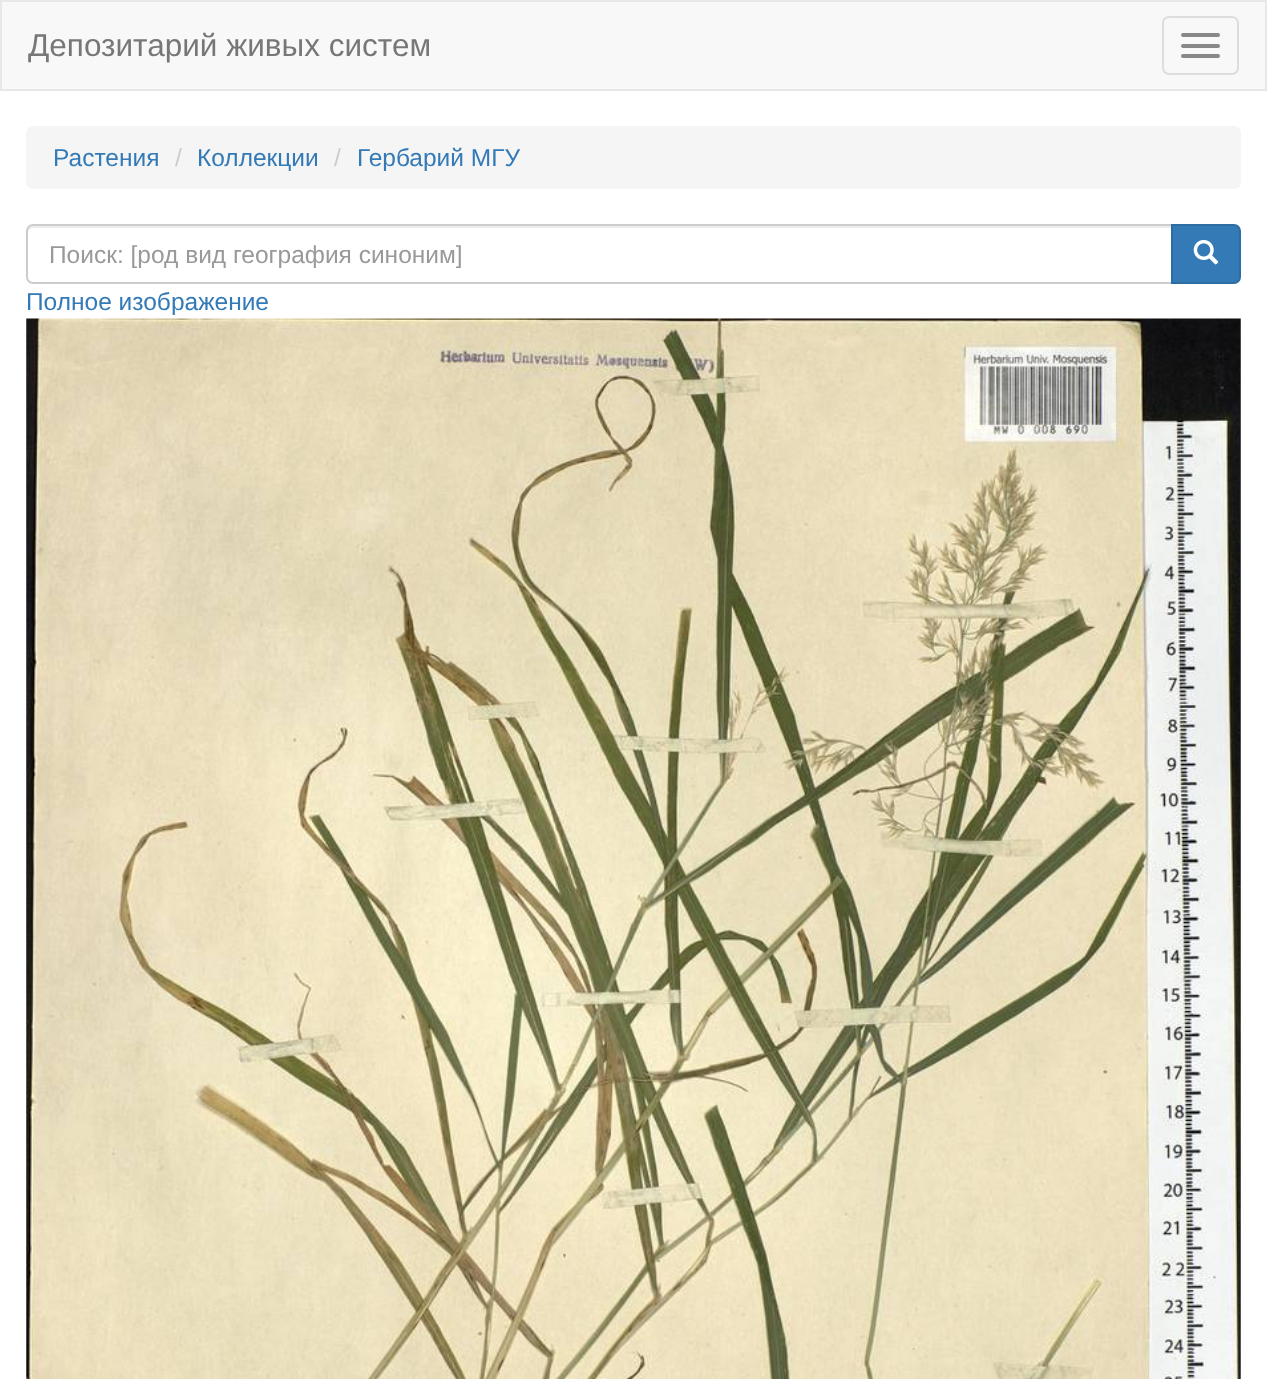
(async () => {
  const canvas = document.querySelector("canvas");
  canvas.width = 1267;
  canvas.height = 1379;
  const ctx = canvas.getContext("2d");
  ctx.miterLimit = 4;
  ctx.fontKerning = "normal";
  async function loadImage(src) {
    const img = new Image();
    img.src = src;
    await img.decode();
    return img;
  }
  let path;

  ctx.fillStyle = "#ffffff";
  ctx.fillRect(0, 0, 1267, 1379);
  ctx.fillStyle = "#f8f8f8";
  ctx.beginPath();
  ctx.rect(1, 1, 1265, 89);
  ctx.fill();
  ctx.strokeStyle = "#e7e7e7";
  ctx.lineWidth = 2;
  ctx.stroke();
  ctx.beginPath();
  ctx.roundRect(1163, 17, 75, 57, 6);
  ctx.strokeStyle = "#dddddd";
  ctx.stroke();
  ctx.fillStyle = "#888888";
  ctx.beginPath();
  ctx.roundRect(1181, 33, 39, 4, 2);
  ctx.fill();
  ctx.beginPath();
  ctx.roundRect(1181, 44, 39, 4, 2);
  ctx.fill();
  ctx.beginPath();
  ctx.roundRect(1181, 54, 39, 4, 2);
  ctx.fill();
  ctx.fillStyle = "#f5f5f5";
  ctx.beginPath();
  ctx.roundRect(26, 126, 1215, 63, 7);
  ctx.fill();
  ctx.fillStyle = "#ececec";
  path = new Path2D("M33 228H1171V226H33C30 226 28 228 28 231V233C28 230 30 228 33 228Z");
  ctx.fill(path);
  ctx.beginPath();
  ctx.roundRect(27, 225, 1145, 58, [6, 0, 0, 6]);
  ctx.strokeStyle = "#cccccc";
  ctx.stroke();
  ctx.fillStyle = "#337ab7";
  ctx.beginPath();
  ctx.roundRect(1172, 225, 68, 58, [0, 6, 6, 0]);
  ctx.fill();
  ctx.strokeStyle = "#2e6da4";
  ctx.stroke();
  ctx.drawImage(await loadImage("img/1.png"), 1193, 239, 26, 26);
  ctx.drawImage(await loadImage("img/2.png"), 26, 318, 1215, 1061);
  ctx.font = "31.5px Liberation Sans";
  ctx.fillStyle = "#777777";
  ctx.fillText("Депозитарий живых систем", 28, 56);
  ctx.font = "24.5px Liberation Sans";
  ctx.fillStyle = "#337ab7";
  ctx.fillText("Растения", 53, 166);
  ctx.fillStyle = "#cccccc";
  ctx.fillText("/", 175, 166);
  ctx.fillStyle = "#337ab7";
  ctx.fillText("Коллекции", 197, 166);
  ctx.fillStyle = "#cccccc";
  ctx.fillText("/", 334, 166);
  ctx.fillStyle = "#337ab7";
  ctx.fillText("Гербарий МГУ", 357, 166);
  ctx.save();
  ctx.beginPath();
  ctx.rect(49, 240, 1101, 28);
  ctx.clip();
  ctx.fillStyle = "#999999";
  ctx.fillText("Поиск: [род вид география синоним]", 49, 263);
  ctx.restore();
  ctx.fillText("Полное изображение", 26, 310);
})();
